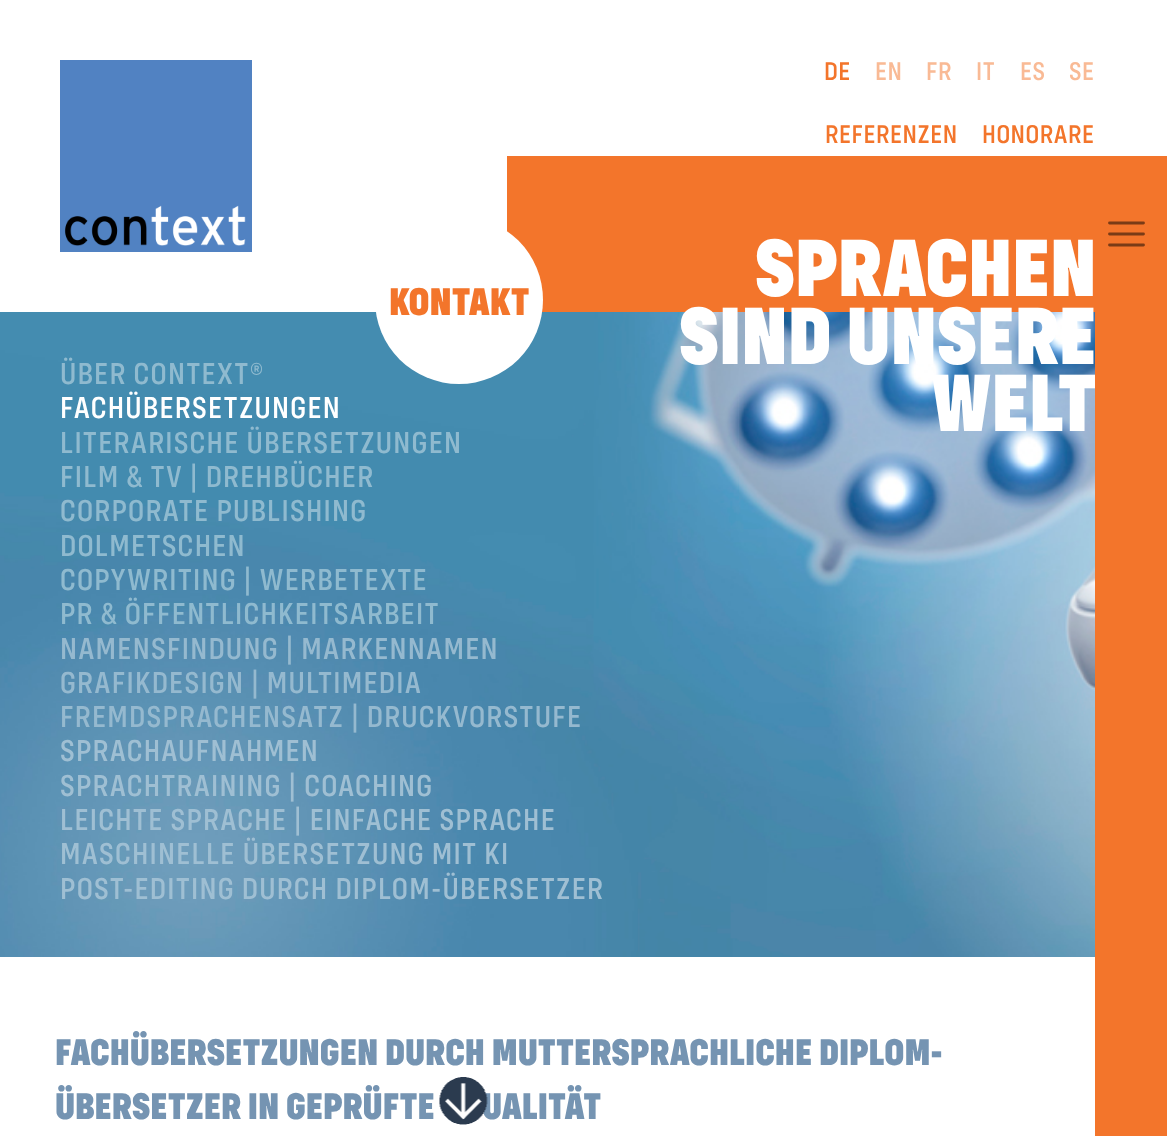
(async () => {
  const canvas = document.querySelector("canvas");
  canvas.width = 1167;
  canvas.height = 1136;
  const ctx = canvas.getContext("2d");
  ctx.miterLimit = 4;
  ctx.fontKerning = "normal";
  async function loadImage(src) {
    const img = new Image();
    img.src = src;
    await img.decode();
    return img;
  }
  let path;

  ctx.fillStyle = "#ffffff";
  ctx.fillRect(0, 0, 1167, 1136);
  ctx.drawImage(await loadImage("img/1.png"), 60, 60, 192, 192);
  ctx.fillStyle = "#f3752b";
  ctx.fillRect(507, 156, 588, 156);
  ctx.fillRect(1095, 156, 72, 980);
  path = new Path2D("M1109.5 223H1143.5M1109.5 234H1143.5M1109.5 245H1143.5");
  ctx.strokeStyle = "#7a3b16";
  ctx.lineWidth = 2.8;
  ctx.lineCap = "round";
  ctx.stroke(path);
  ctx.drawImage(await loadImage("img/2.png"), 0, 312, 1095, 645);
  ctx.fillStyle = "#ffffff";
  ctx.beginPath();
  ctx.arc(459, 300, 84, 0, Math.PI * 2);
  ctx.fill();
  ctx.letterSpacing = "0.5px";
  ctx.font = "500 26.5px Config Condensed";
  ctx.fillStyle = "#f3752b";
  ctx.fillText("DE", 824, 80);
  ctx.fillStyle = "#f9ba95";
  for (const [text, x, y] of [
    ["EN", 875, 80],
    ["FR", 926, 80],
    ["IT", 976, 80],
    ["ES", 1020, 80],
    ["SE", 1069, 80],
  ]) {
    ctx.fillText(text, x, y);
  }
  ctx.fillStyle = "#f3752b";
  ctx.fillText("REFERENZEN", 825, 143);
  ctx.fillText("HONORARE", 982, 143);
  ctx.letterSpacing = "0px";
  ctx.font = "900 40px Config Condensed";
  ctx.fillText("KONTAKT", 389, 315);
  ctx.font = "900 84px Config Condensed";
  ctx.fillStyle = "#ffffff";
  for (const [text, x, y] of [
    ["SPRACHEN", 755, 296],
    ["SIND UNSERE", 679, 364],
    ["WELT", 931, 431],
  ]) {
    ctx.fillText(text, x, y);
  }
  ctx.letterSpacing = "1.2px";
  ctx.font = "500 31.25px Config Condensed";
  ctx.fillStyle = "#8fbacf";
  ctx.fillText("ÜBER CONTEXT®", 60, 384);
  ctx.fillStyle = "#ffffff";
  ctx.fillText("FACHÜBERSETZUNGEN", 60, 418);
  ctx.fillStyle = "#8fbacf";
  for (const [text, x, y] of [
    ["LITERARISCHE ÜBERSETZUNGEN", 60, 453],
    ["FILM & TV | DREHBÜCHER", 60, 487],
    ["CORPORATE PUBLISHING", 60, 521],
    ["DOLMETSCHEN", 60, 556],
    ["COPYWRITING | WERBETEXTE", 60, 590],
    ["PR & ÖFFENTLICHKEITSARBEIT", 60, 624],
  ]) {
    ctx.fillText(text, x, y);
  }
  ctx.fillStyle = "#95b9cf";
  for (const [text, x, y] of [
    ["NAMENSFINDUNG | MARKENNAMEN", 60, 659],
    ["GRAFIKDESIGN | MULTIMEDIA", 60, 693],
    ["FREMDSPRACHENSATZ | DRUCKVORSTUFE", 60, 727],
  ]) {
    ctx.fillText(text, x, y);
  }
  ctx.fillStyle = "#9fbfd3";
  for (const [text, x, y] of [
    ["SPRACHAUFNAHMEN", 60, 761],
    ["SPRACHTRAINING | COACHING", 60, 796],
    ["LEICHTE SPRACHE | EINFACHE SPRACHE", 60, 830],
    ["MASCHINELLE ÜBERSETZUNG MIT KI", 60, 864],
    ["POST-EDITING DURCH DIPLOM-ÜBERSETZER", 60, 899],
  ]) {
    ctx.fillText(text, x, y);
  }
  ctx.letterSpacing = "0px";
  ctx.font = "900 38.4px Config Condensed";
  ctx.fillStyle = "#7594b2";
  for (const [text, x, y] of [
    ["FACHÜBERSETZUNGEN DURCH MUTTERSPRACHLICHE DIPLOM-", 55, 1065],
    ["ÜBERSETZER IN GEPRÜFTE", 55, 1119],
    ["UALITÄT", 482, 1119],
  ]) {
    ctx.fillText(text, x, y);
  }
  ctx.drawImage(await loadImage("img/3.png"), 439, 1077, 49, 48);
})();
